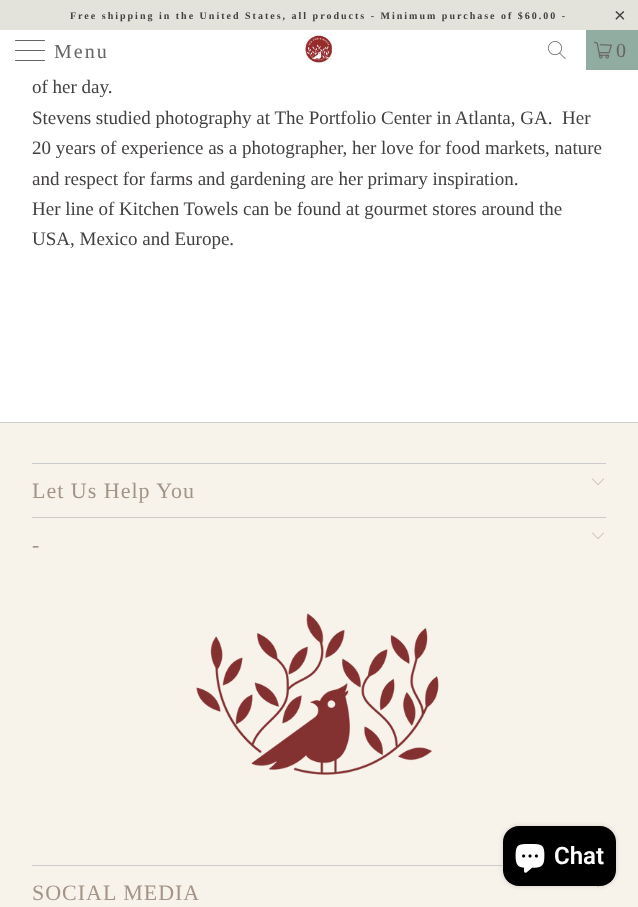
(async () => {
  const canvas = document.querySelector("canvas");
  canvas.width = 638;
  canvas.height = 907;
  const ctx = canvas.getContext("2d");
  ctx.miterLimit = 4;
  ctx.fontKerning = "normal";
  async function loadImage(src) {
    const img = new Image();
    img.src = src;
    await img.decode();
    return img;
  }

  ctx.fillStyle = "#ffffff";
  ctx.fillRect(0, 0, 638, 907);
  ctx.fillStyle = "#e3e2db";
  ctx.fillRect(0, 0, 638, 30);
  ctx.fillStyle = "#676464";
  ctx.beginPath();
  ctx.roundRect(15, 40, 30, 1, 0.5);
  ctx.fill();
  ctx.beginPath();
  ctx.roundRect(15, 50, 30, 1, 0.5);
  ctx.fill();
  ctx.beginPath();
  ctx.roundRect(15, 60, 30, 1, 0.5);
  ctx.fill();
  ctx.drawImage(await loadImage("img/1.png"), 305, 35, 29, 29);
  ctx.drawImage(await loadImage("img/2.png"), 548, 41, 18, 18);
  ctx.fillStyle = "#91aca1";
  ctx.fillRect(586, 30, 52, 40);
  ctx.drawImage(await loadImage("img/3.png"), 594, 41, 18, 18);
  for (const [x, y, w, h, color] of [
    [0, 423, 638, 484, "#f7f3eb"],
    [0, 422, 638, 1, "#cccccc"],
    [32, 463, 574, 1, "#cccccc"],
  ]) {
    ctx.fillStyle = color;
    ctx.fillRect(x, y, w, h);
  }
  ctx.drawImage(await loadImage("img/4.png"), 592, 478, 12, 7);
  ctx.fillRect(32, 517, 574, 1);
  ctx.drawImage(await loadImage("img/4.png"), 592, 532, 12, 7);
  ctx.drawImage(await loadImage("img/5.png"), 196, 613, 243, 162);
  ctx.fillRect(32, 865, 471, 1);
  ctx.drawImage(await loadImage("img/6.png"), 597, 886, 2, 1);
  ctx.fillStyle = "rgba(0, 0, 0, 0.15)";
  ctx.filter = "blur(2.5px)";
  ctx.beginPath();
  ctx.roundRect(503, 826, 113, 60, 16);
  ctx.fill();
  ctx.filter = "none";
  ctx.fillStyle = "#000000";
  ctx.beginPath();
  ctx.roundRect(503, 826, 113, 60, 16);
  ctx.fill();
  ctx.drawImage(await loadImage("img/7.png"), 515, 844, 30, 29);
  ctx.letterSpacing = "2px";
  ctx.font = "bold 10px Liberation Serif";
  ctx.fillStyle = "#423f3f";
  ctx.fillText("Free shipping in the United States, all products - Minimum purchase of $60.00 -", 70, 19);
  ctx.font = "20px Liberation Sans";
  ctx.fillText("×", 614, 22);
  ctx.font = "20px Liberation Serif";
  ctx.fillStyle = "#676464";
  ctx.fillText("Menu", 54, 58);
  ctx.fillText("0", 616, 57);
  ctx.letterSpacing = "0px";
  ctx.font = "19px Liberation Serif";
  ctx.fillStyle = "#423f3f";
  for (const [text, x, y] of [
    ["of her day.", 32, 93],
    ["Stevens studied photography at The Portfolio Center in Atlanta, GA.  Her", 32, 124],
    ["20 years of experience as a photographer, her love for food markets, nature", 32, 154],
    ["and respect for farms and gardening are her primary inspiration.", 32, 185],
    ["Her line of Kitchen Towels can be found at gourmet stores around the", 32, 215],
    ["USA, Mexico and Europe.", 32, 245],
  ]) {
    ctx.fillText(text, x, y);
  }
  ctx.letterSpacing = "1px";
  ctx.font = "22px Liberation Serif";
  ctx.fillStyle = "#a39487";
  for (const [text, x, y] of [
    ["Let Us Help You", 32, 498],
    ["-", 32, 552],
    ["SOCIAL MEDIA", 32, 900],
  ]) {
    ctx.fillText(text, x, y);
  }
  ctx.letterSpacing = "0px";
  ctx.font = "600 24px Roboto";
  ctx.fillStyle = "#ffffff";
  ctx.fillText("Chat", 554, 864);
})();
